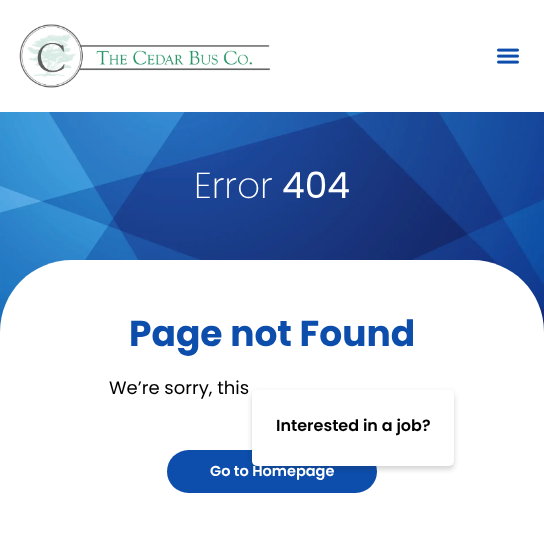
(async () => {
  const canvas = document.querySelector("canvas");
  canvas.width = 544;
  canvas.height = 542;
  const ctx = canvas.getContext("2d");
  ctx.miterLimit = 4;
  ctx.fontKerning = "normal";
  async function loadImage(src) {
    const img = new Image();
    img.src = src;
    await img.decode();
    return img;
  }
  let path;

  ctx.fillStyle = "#ffffff";
  ctx.fillRect(0, 0, 544, 542);
  ctx.drawImage(await loadImage("img/1.png"), 19, 24, 251, 64);
  ctx.drawImage(await loadImage("img/2.png"), 497, 48, 22, 16);
  ctx.drawImage(await loadImage("img/3.png"), 0, 112, 544, 220);
  path = new Path2D("M72 260H472C512 260 544 292 544 332V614H0V332C0 292 32 260 72 260Z");
  ctx.fill(path);
  ctx.fillStyle = "#0d4eac";
  ctx.beginPath();
  ctx.roundRect(167, 450, 210, 43, 21.5);
  ctx.fill();
  ctx.fillStyle = "rgba(30, 30, 31, 0.1)";
  ctx.filter = "blur(3px)";
  ctx.beginPath();
  ctx.roundRect(252, 392, 202, 76, 5);
  ctx.fill();
  ctx.filter = "none";
  ctx.filter = "blur(2px)";
  ctx.beginPath();
  ctx.roundRect(252, 394, 202, 76, 5);
  ctx.fill();
  ctx.filter = "none";
  ctx.fillStyle = "#ffffff";
  ctx.beginPath();
  ctx.roundRect(252, 390, 202, 76, 5);
  ctx.fill();
  ctx.font = "200 36px Poppins";
  ctx.fillText("Error", 194, 198);
  ctx.font = "36px Poppins";
  ctx.fillText("404", 282, 198);
  ctx.font = "bold 36px Poppins";
  ctx.fillStyle = "#0d4eac";
  ctx.fillText("Page not Found", 129, 346);
  ctx.font = "18px Poppins";
  ctx.fillStyle = "#000000";
  ctx.fillText("We’re sorry, this", 109, 394);
  ctx.font = "600 14.5px Poppins";
  ctx.fillStyle = "#ffffff";
  ctx.fillText("Go to Homepage", 210, 476);
  ctx.font = "600 16px Poppins";
  ctx.fillStyle = "#000000";
  ctx.fillText("Interested in a job?", 276, 431);
})();
